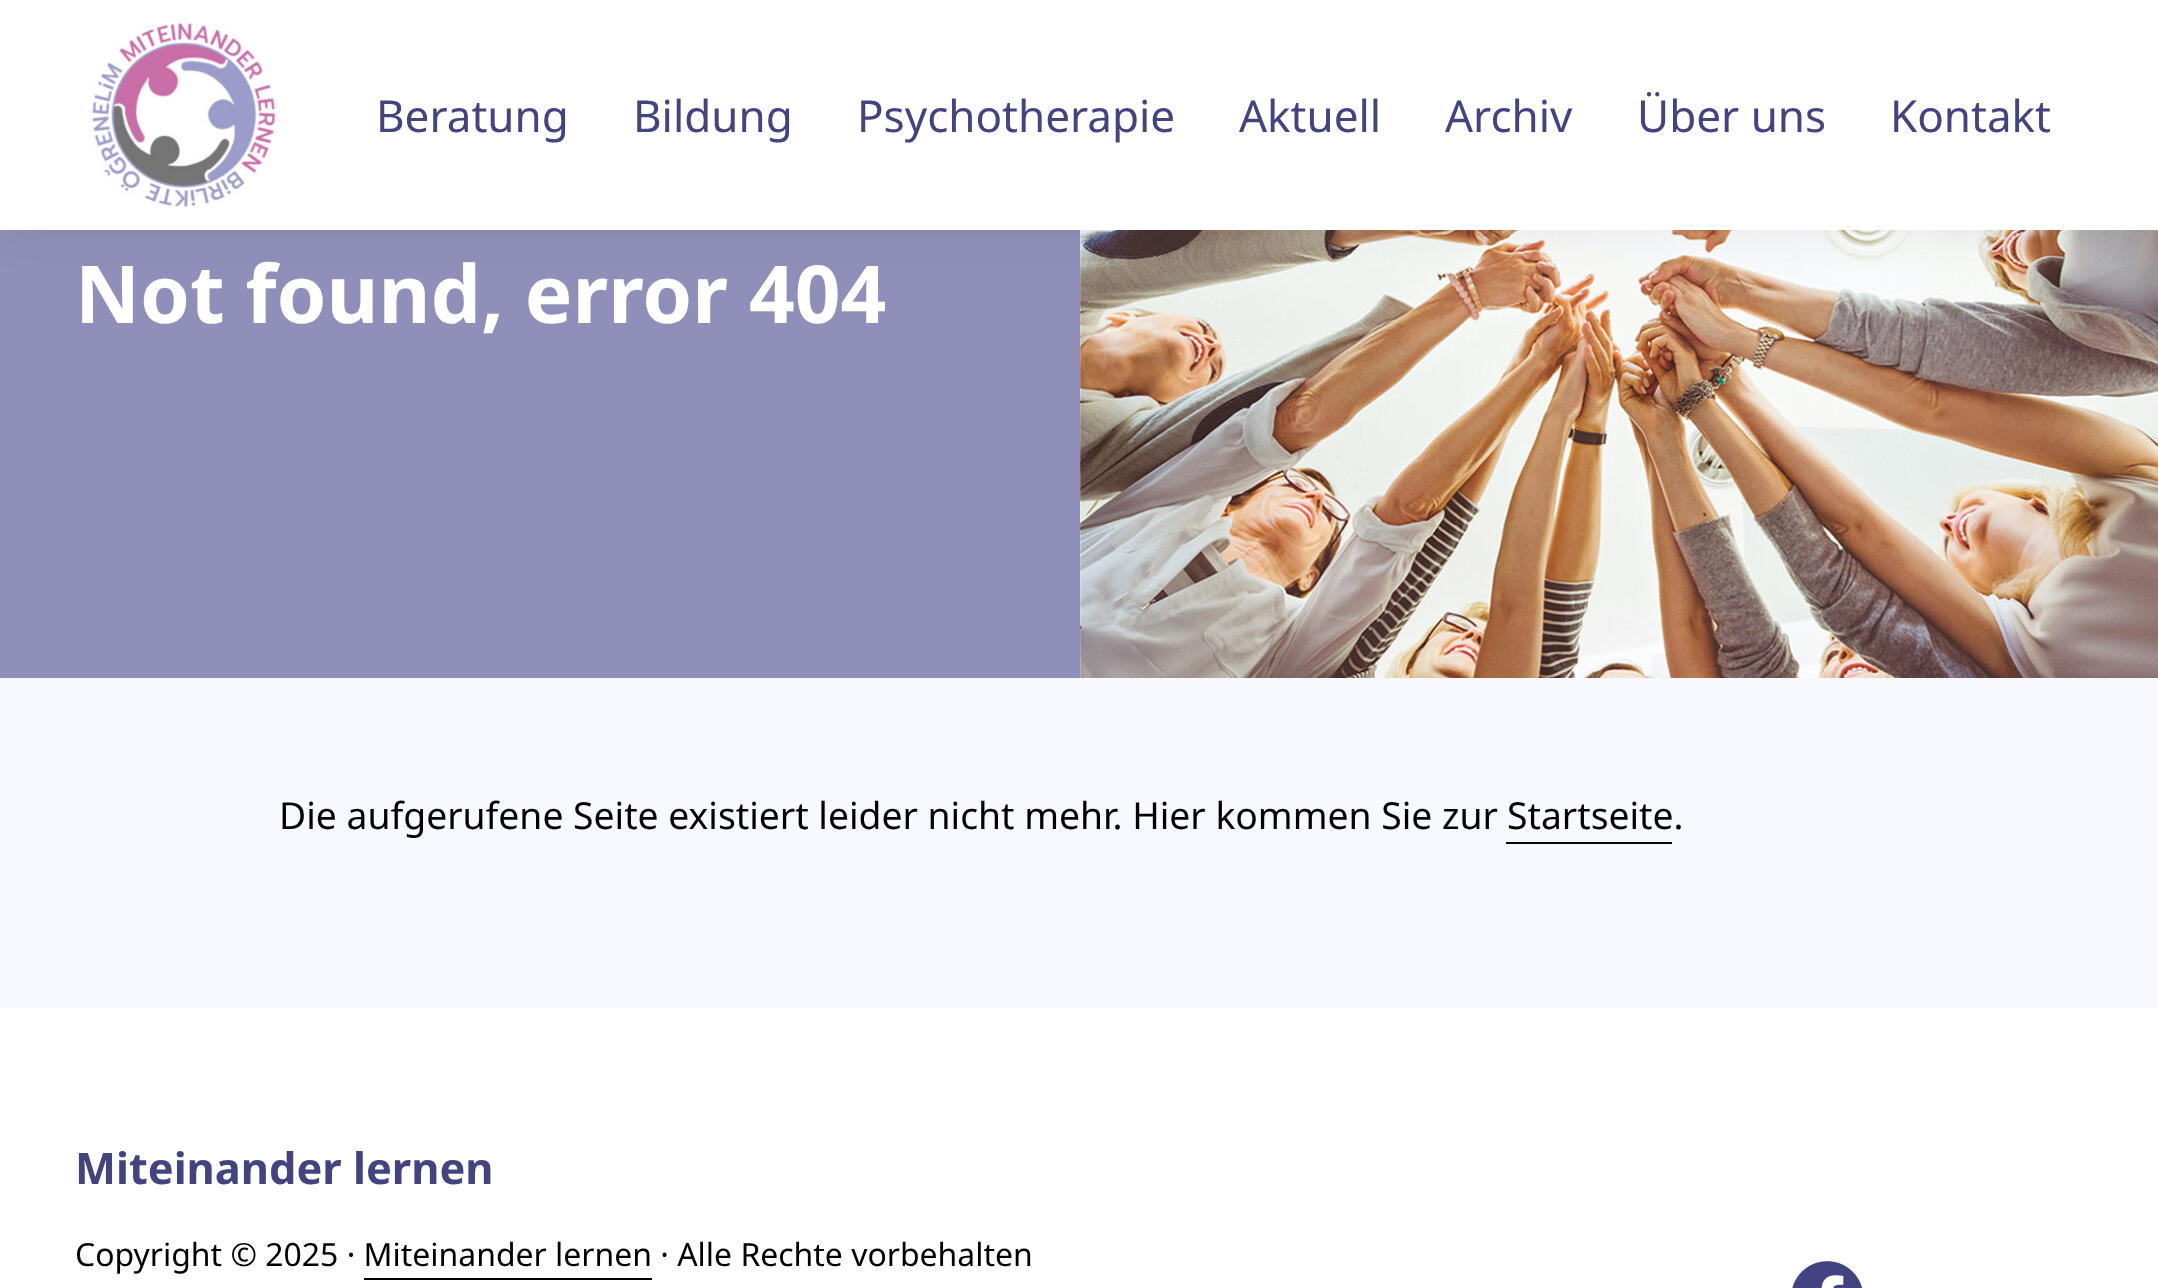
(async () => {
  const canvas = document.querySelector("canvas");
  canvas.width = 2158;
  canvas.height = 1288;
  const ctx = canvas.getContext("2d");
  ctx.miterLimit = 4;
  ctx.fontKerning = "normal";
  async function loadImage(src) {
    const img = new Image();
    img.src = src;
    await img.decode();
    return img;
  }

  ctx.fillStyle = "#f8f8ff";
  ctx.fillRect(0, 0, 2158, 1288);
  ctx.fillStyle = "#8f8fb9";
  ctx.fillRect(0, 230, 1080, 448);
  ctx.drawImage(await loadImage("img/2.png"), 1080, 230, 1078, 448);
  ctx.fillStyle = "rgba(0, 0, 0, 0.07)";
  ctx.filter = "blur(24px)";
  ctx.beginPath();
  ctx.rect(0, 0, 2158, 230);
  ctx.fill();
  ctx.filter = "none";
  ctx.fillStyle = "#ffffff";
  ctx.fillRect(0, 0, 2158, 230);
  ctx.drawImage(await loadImage("img/1.png"), 89, 18, 189, 191);
  for (const [x, y, w, h, color] of [
    [1506, 842, 166, 2, "#000000"],
    [0, 1008, 2158, 280, "#ffffff"],
    [364, 1278, 288, 2, "#000000"],
  ]) {
    ctx.fillStyle = color;
    ctx.fillRect(x, y, w, h);
  }
  ctx.drawImage(await loadImage("img/3.png"), 1792, 1261, 70, 27);
  ctx.font = "44px Noto Sans";
  ctx.fillStyle = "#424380";
  for (const [text, x, y] of [
    ["Beratung", 376, 132],
    ["Bildung", 633, 132],
    ["Psychotherapie", 857, 132],
    ["Aktuell", 1239, 132],
    ["Archiv", 1445, 132],
    ["Über uns", 1637, 132],
    ["Kontakt", 1890, 132],
  ]) {
    ctx.fillText(text, x, y);
  }
  ctx.font = "bold 80px Noto Sans";
  ctx.fillStyle = "#ffffff";
  ctx.fillText("Not found, error 404", 75, 323);
  ctx.font = "37.25px Noto Sans";
  ctx.fillStyle = "#000000";
  ctx.fillText("Die aufgerufene Seite existiert leider nicht mehr. Hier kommen Sie zur", 279, 829);
  ctx.fillText("Startseite.", 1507, 829);
  ctx.font = "bold 43.4px Noto Sans";
  ctx.fillStyle = "#424380";
  ctx.fillText("Miteinander lernen", 75, 1184);
  ctx.font = "31.95px Noto Sans";
  ctx.fillStyle = "#000000";
  ctx.fillText("Copyright © 2025 · Miteinander lernen · Alle Rechte vorbehalten", 75, 1266);
})();
